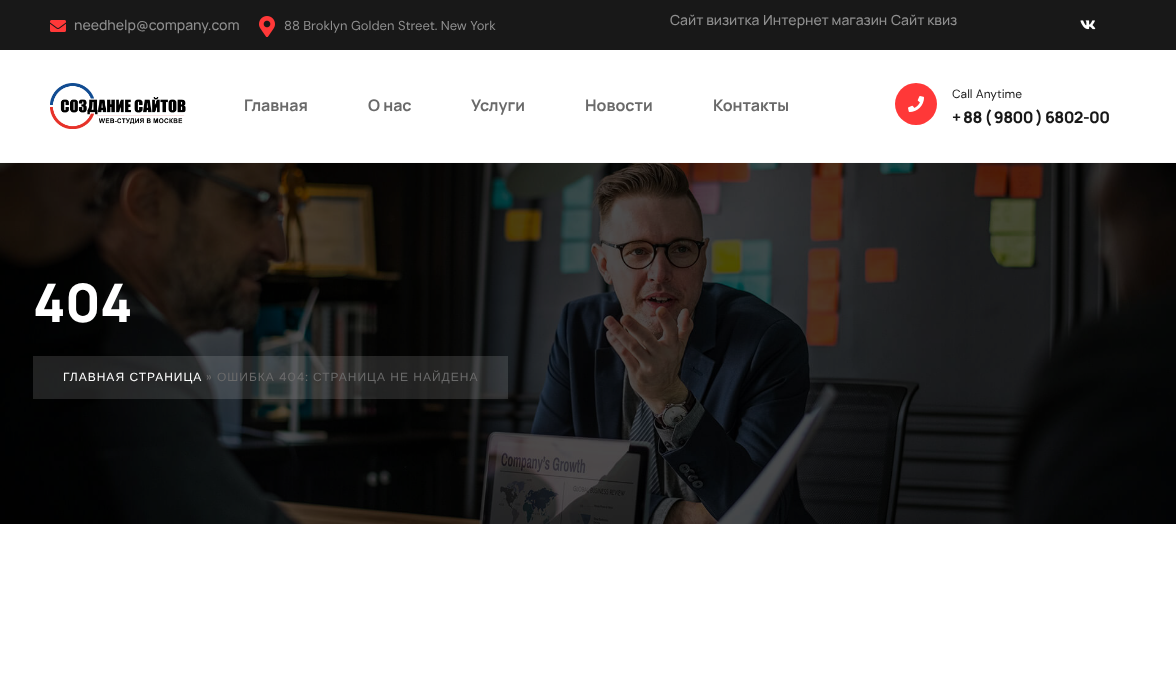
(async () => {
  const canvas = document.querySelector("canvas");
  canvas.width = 1176;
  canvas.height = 680;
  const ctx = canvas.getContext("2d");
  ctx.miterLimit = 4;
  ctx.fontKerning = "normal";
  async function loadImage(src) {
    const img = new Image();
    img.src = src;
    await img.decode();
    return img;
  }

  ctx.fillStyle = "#ffffff";
  ctx.fillRect(0, 0, 1176, 680);
  ctx.fillStyle = "#181818";
  ctx.fillRect(0, 0, 1176, 50);
  ctx.drawImage(await loadImage("img/1.png"), 50, 20, 16, 12);
  ctx.drawImage(await loadImage("img/2.png"), 259, 16, 16, 21);
  ctx.drawImage(await loadImage("img/3.png"), 1080, 20, 16, 10);
  ctx.fillStyle = "#fafafa";
  ctx.fillRect(0, 162, 1176, 1);
  ctx.drawImage(await loadImage("img/4.png"), 50, 83, 136, 46);
  ctx.fillStyle = "#ff3838";
  ctx.beginPath();
  ctx.arc(916, 104, 21, 0, Math.PI * 2);
  ctx.fill();
  ctx.drawImage(await loadImage("img/5.png"), 908, 96, 16, 16);
  ctx.drawImage(await loadImage("img/6.png"), 0, 163, 1176, 361);
  ctx.fillStyle = "rgba(255, 255, 255, 0.13)";
  ctx.fillRect(33, 356, 475, 43);
  ctx.font = "500 14px Manrope";
  ctx.fillStyle = "#8f8f8f";
  ctx.fillText("needhelp@company.com", 74, 30);
  ctx.font = "13px DM Sans";
  ctx.fillText("88 Broklyn Golden Street. New York", 284, 30);
  ctx.font = "500 14px Manrope";
  for (const [text, x, y] of [
    ["Сайт визитка", 670, 25],
    ["Интернет магазин", 763, 25],
    ["Сайт квиз", 891, 25],
  ]) {
    ctx.fillText(text, x, y);
  }
  ctx.font = "bold 16px Manrope";
  ctx.fillStyle = "#6a6a6a";
  for (const [text, x, y] of [
    ["Главная", 244, 111],
    ["О нас", 368, 111],
    ["Услуги", 471, 111],
    ["Новости", 585, 111],
    ["Контакты", 713, 111],
  ]) {
    ctx.fillText(text, x, y);
  }
  ctx.font = "12px DM Sans";
  ctx.fillStyle = "#222222";
  ctx.fillText("Call Anytime", 952, 98);
  ctx.letterSpacing = "-0.6px";
  ctx.font = "800 16px Manrope";
  ctx.fillStyle = "#181818";
  ctx.fillText("+ 88 ( 9800 ) 6802-00", 952, 123);
  ctx.font = "800 53px Manrope";
  ctx.fillStyle = "#ffffff";
  ctx.fillText("404", 33, 322);
  ctx.letterSpacing = "1px";
  ctx.font = "12px Liberation Sans";
  ctx.fillText("ГЛАВНАЯ СТРАНИЦА", 63, 381);
  ctx.font = "500 12px DM Sans";
  ctx.fillStyle = "#6a6a6a";
  ctx.fillText("»", 206, 381);
  ctx.font = "12px Liberation Sans";
  ctx.fillText("ОШИБКА", 217, 381);
  ctx.font = "500 12px DM Sans";
  ctx.fillText("404:", 279, 381);
  ctx.font = "12px Liberation Sans";
  ctx.fillText("СТРАНИЦА НЕ НАЙДЕНА", 313, 381);
})();
